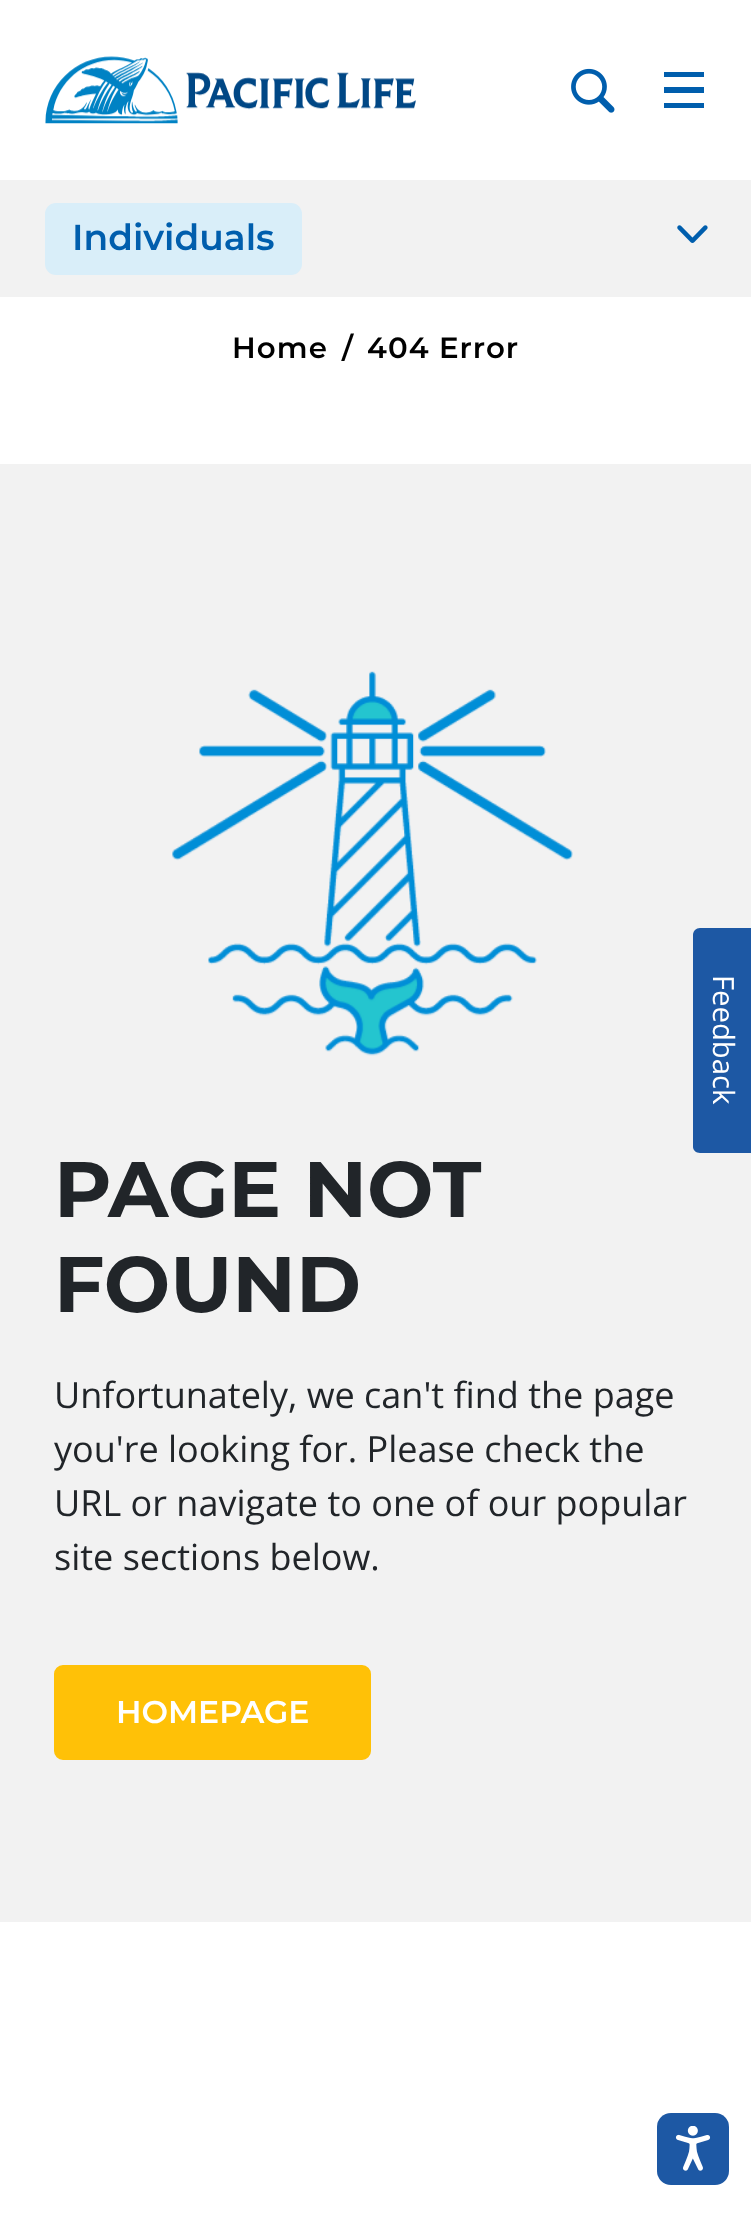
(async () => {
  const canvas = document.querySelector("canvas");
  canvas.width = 751;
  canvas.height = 2222;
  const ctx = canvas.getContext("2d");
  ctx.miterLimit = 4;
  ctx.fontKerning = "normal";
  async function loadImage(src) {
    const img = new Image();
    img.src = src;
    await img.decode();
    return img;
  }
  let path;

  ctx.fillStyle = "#ffffff";
  ctx.fillRect(0, 0, 751, 2222);
  ctx.drawImage(await loadImage("img/1.png"), 45, 56, 371, 68);
  ctx.drawImage(await loadImage("img/2.png"), 571, 68, 44, 45);
  ctx.fillStyle = "#005ead";
  path = new Path2D("M664 87H704V93H664ZM664 108H704V103H664ZM664 72V77H704V72Z");
  ctx.fill(path);
  ctx.fillStyle = "#f2f2f2";
  ctx.fillRect(0, 180, 751, 117);
  ctx.fillStyle = "#d9eef9";
  ctx.beginPath();
  ctx.roundRect(45, 203, 257, 72, 11);
  ctx.fill();
  ctx.drawImage(await loadImage("img/3.png"), 677, 225, 31, 18);
  ctx.fillStyle = "#f2f2f2";
  ctx.fillRect(0, 464, 751, 1458);
  ctx.drawImage(await loadImage("img/4.png"), 172, 671, 401, 385);
  ctx.fillStyle = "#ffc107";
  ctx.beginPath();
  ctx.roundRect(55, 1666, 315, 93, 8);
  ctx.fill();
  ctx.strokeStyle = "#ffc107";
  ctx.lineWidth = 2;
  ctx.stroke();
  ctx.fillStyle = "#1d58a4";
  path = new Path2D("M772 928V1153H700C696 1153 693 1150 693 1147V935C693 931 696 928 700 928Z");
  ctx.fill(path);
  ctx.beginPath();
  ctx.roundRect(657, 2113, 72, 72, 14);
  ctx.fill();
  ctx.drawImage(await loadImage("img/5.png"), 675, 2126, 36, 45);
  ctx.font = "600 36px Montserrat";
  ctx.fillStyle = "#005ead";
  ctx.fillText("Individuals", 72, 250);
  ctx.letterSpacing = "1.1px";
  ctx.font = "600 29.25px Montserrat";
  ctx.fillStyle = "#000000";
  for (const [text, x, y] of [
    ["Home", 232, 358],
    ["/", 342, 358],
    ["404 Error", 367, 358],
  ]) {
    ctx.fillText(text, x, y);
  }
  ctx.letterSpacing = "0px";
  ctx.font = "bold 78.75px Montserrat";
  ctx.fillStyle = "#212529";
  ctx.fillText("PAGE NOT", 54, 1217);
  ctx.fillText("FOUND", 54, 1312);
  ctx.font = "36px Open Sans";
  for (const [text, x, y] of [
    ["Unfortunately, we can't find the page", 54, 1408],
    ["you're looking for. Please check the", 54, 1462],
    ["URL or navigate to one of our popular", 54, 1516],
    ["site sections below.", 54, 1570],
  ]) {
    ctx.fillText(text, x, y);
  }
  ctx.font = "600 31.5px Montserrat";
  ctx.fillStyle = "#ffffff";
  ctx.fillText("HOMEPAGE", 116, 1723);
  ctx.font = "29.25px Open Sans";
  ctx.save();
  ctx.translate(713, 975);
  ctx.rotate(90 * Math.PI / 180);
  ctx.fillText("Feedback", 0, 0);
  ctx.restore();
})();
